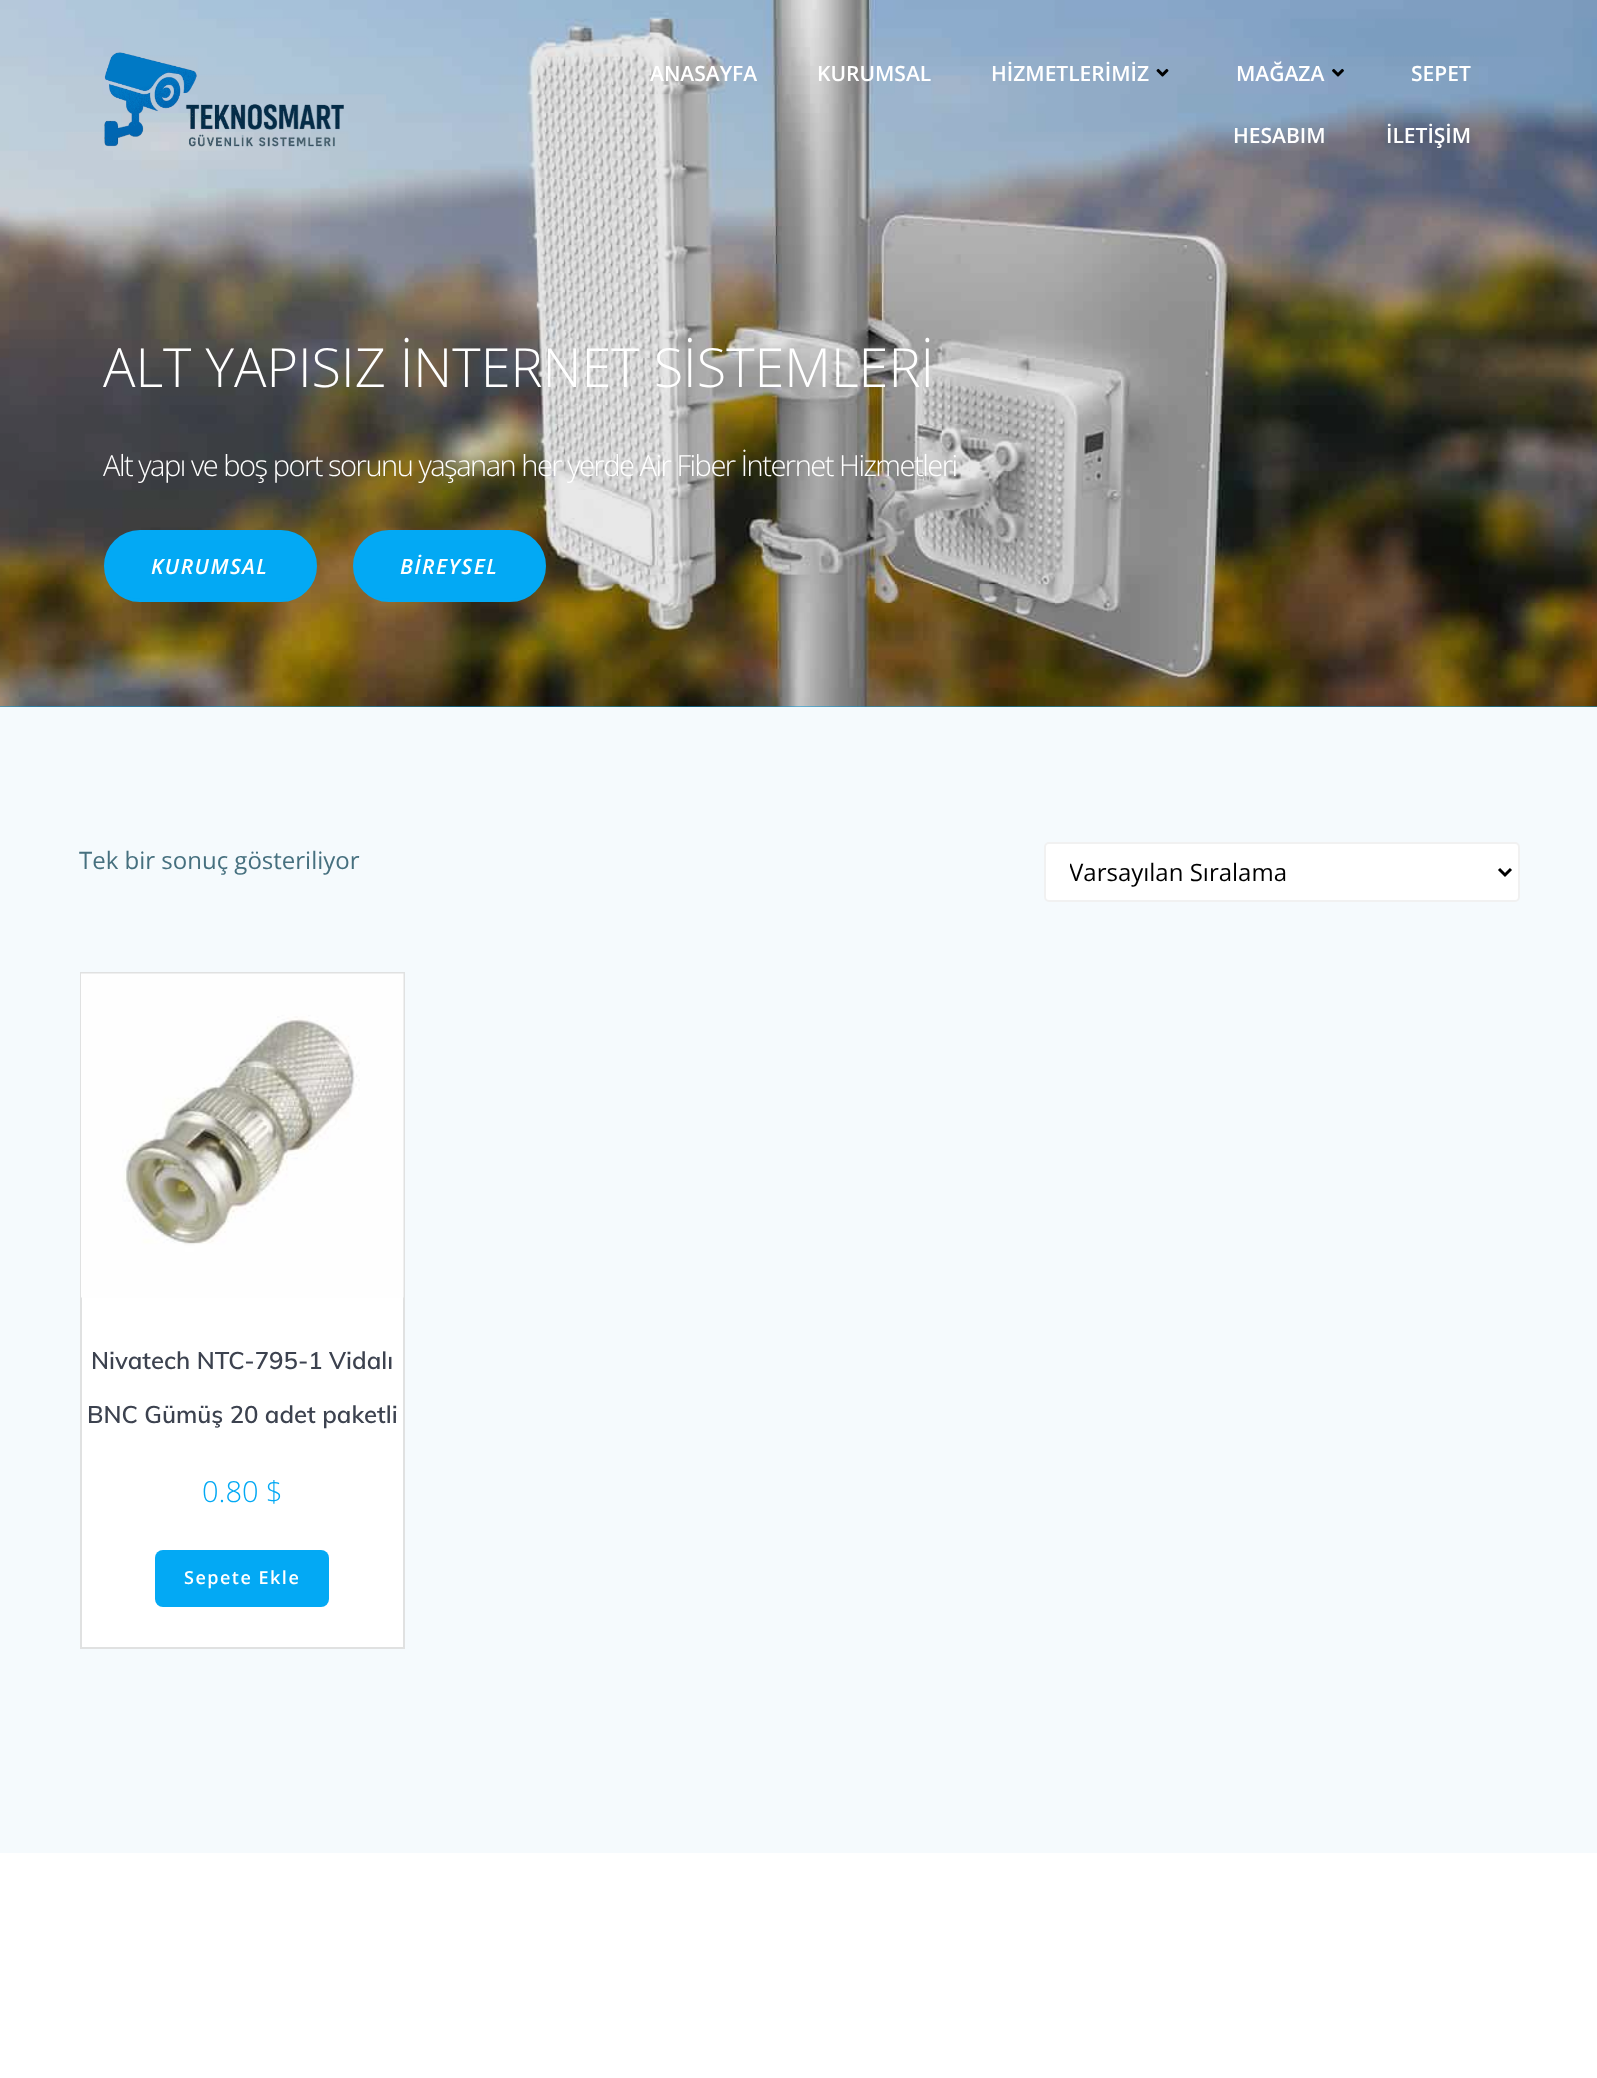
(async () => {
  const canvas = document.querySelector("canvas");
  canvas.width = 1597;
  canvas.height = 2078;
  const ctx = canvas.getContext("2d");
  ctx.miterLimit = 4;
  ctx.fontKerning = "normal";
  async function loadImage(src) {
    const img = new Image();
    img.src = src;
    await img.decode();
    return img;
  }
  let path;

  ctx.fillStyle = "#ffffff";
  ctx.fillRect(0, 0, 1597, 2078);
  ctx.fillStyle = "#039ade";
  ctx.fillRect(0, 706, 1597, 1);
  ctx.drawImage(await loadImage("img/4.png"), 0, 0, 1597, 707);
  ctx.drawImage(await loadImage("img/1.png"), 104, 52, 240, 95);
  ctx.drawImage(await loadImage("img/2.png"), 1156, 68, 13, 9);
  ctx.drawImage(await loadImage("img/3.png"), 1332, 68, 12, 9);
  ctx.fillStyle = "#03a9f4";
  ctx.beginPath();
  ctx.roundRect(105.5, 531.5, 210, 69, 34.5);
  ctx.fill();
  ctx.strokeStyle = "#03a9f4";
  ctx.lineWidth = 3;
  ctx.stroke();
  ctx.beginPath();
  ctx.roundRect(354.5, 531.5, 190, 69, 34.5);
  ctx.fill();
  ctx.stroke();
  ctx.fillStyle = "#f5fafd";
  ctx.fillRect(0, 707, 1597, 1146);
  ctx.fillStyle = "#ffffff";
  ctx.beginPath();
  ctx.roundRect(1045, 843, 474, 58, 4);
  ctx.fill();
  ctx.strokeStyle = "#f1f1f1";
  ctx.lineWidth = 2;
  ctx.stroke();
  path = new Path2D("M1499 869L1505 875L1511 869");
  ctx.strokeStyle = "#000000";
  ctx.lineWidth = 3;
  ctx.stroke(path);
  ctx.fillRect(82, 1297, 321, 350);
  ctx.strokeStyle = "#e0e1e1";
  ctx.lineWidth = 2;
  ctx.strokeRect(81, 973, 323, 675);
  ctx.drawImage(await loadImage("img/5.png"), 81, 973, 323, 325);
  ctx.fillStyle = "#03a9f4";
  ctx.beginPath();
  ctx.roundRect(155, 1550, 174, 57, 8);
  ctx.fill();
  ctx.font = "600 21px Open Sans";
  ctx.fillStyle = "#ffffff";
  for (const [text, x, y] of [
    ["ANASAYFA", 650, 81],
    ["KURUMSAL", 817, 81],
    ["HİZMETLERİMİZ", 991, 81],
    ["MAĞAZA", 1236, 81],
    ["SEPET", 1411, 81],
    ["HESABIM", 1233, 143],
    ["İLETİŞİM", 1386, 143],
  ]) {
    ctx.fillText(text, x, y);
  }
  ctx.font = "300 54px Open Sans";
  ctx.fillText("ALT YAPISIZ İNTERNET SİSTEMLERİ", 103, 387);
  ctx.letterSpacing = "-1.5px";
  ctx.font = "300 29.05px Open Sans";
  ctx.fillText("Alt yapı ve boş port sorunu yaşanan her yerde Air Fiber İnternet Hizmetleri", 103, 476);
  ctx.letterSpacing = "1.5px";
  ctx.font = "italic 600 21px Open Sans";
  ctx.fillText("KURUMSAL", 151, 574);
  ctx.fillText("BİREYSEL", 400, 574);
  ctx.letterSpacing = "0px";
  ctx.font = "24px Open Sans";
  ctx.fillStyle = "#46707f";
  ctx.fillText("Tek bir sonuç gösteriliyor", 79, 869);
  ctx.save();
  ctx.beginPath();
  ctx.rect(1070, 854, 406, 36);
  ctx.clip();
  ctx.fillStyle = "#000000";
  ctx.fillText("Varsayılan Sıralama", 1069, 881);
  ctx.restore();
  ctx.font = "600 24px Muli";
  ctx.fillStyle = "#3c424f";
  ctx.fillText("Nivatech NTC-795-1 Vidalı", 91, 1369);
  ctx.fillText("BNC Gümüş 20 adet paketli", 87, 1423);
  ctx.font = "300 29px Open Sans";
  ctx.fillStyle = "#03a9f4";
  ctx.fillText("0.80 $", 202, 1502);
  ctx.letterSpacing = "1.5px";
  ctx.font = "600 18px Open Sans";
  ctx.fillStyle = "#ffffff";
  ctx.fillText("Sepete Ekle", 184, 1584);
})();
